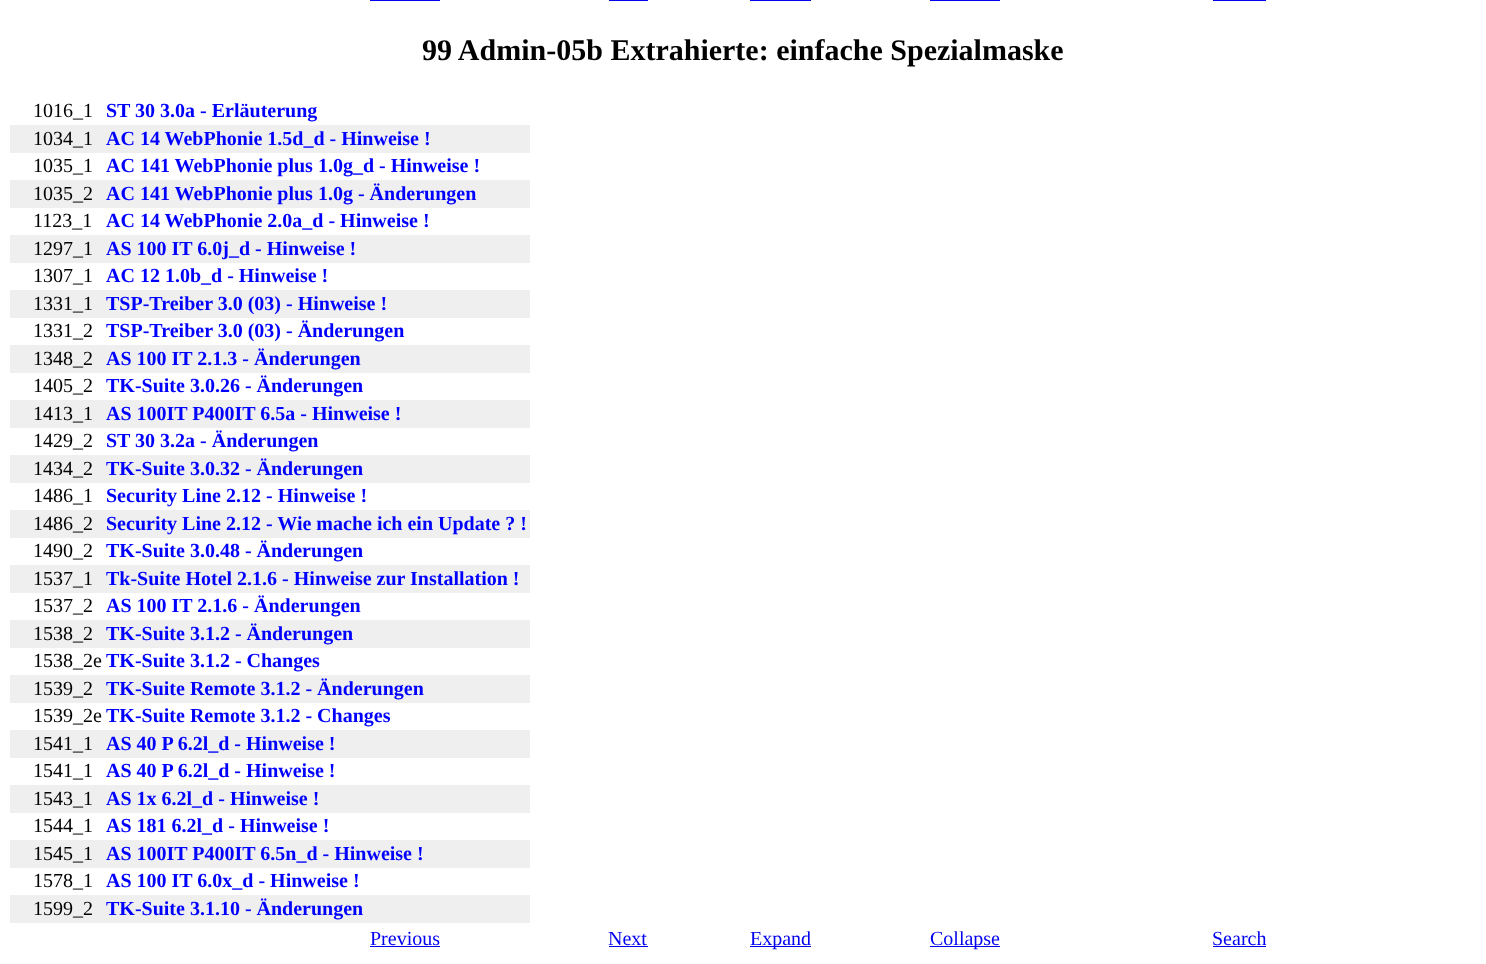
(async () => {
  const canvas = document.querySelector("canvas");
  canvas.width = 1486;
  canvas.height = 964;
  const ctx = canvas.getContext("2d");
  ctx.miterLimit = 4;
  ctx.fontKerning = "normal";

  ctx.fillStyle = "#ffffff";
  ctx.fillRect(0, 0, 1486, 964);
  for (const [x, y, w, h, color] of [
    [370, 0, 70, 1, "#0000ee"],
    [609, 0, 39, 1, "#0000ee"],
    [750, 0, 61, 1, "#0000ee"],
    [930, 0, 70, 1, "#0000ee"],
    [1213, 0, 53, 1, "#0000ee"],
    [10, 125, 520, 28, "#efefef"],
    [10, 180, 520, 28, "#efefef"],
    [10, 235, 520, 28, "#efefef"],
    [10, 290, 520, 28, "#efefef"],
    [10, 345, 520, 28, "#efefef"],
    [10, 400, 520, 28, "#efefef"],
    [10, 455, 520, 28, "#efefef"],
    [10, 510, 520, 28, "#efefef"],
    [10, 565, 520, 28, "#efefef"],
    [10, 620, 520, 28, "#efefef"],
    [10, 675, 520, 28, "#efefef"],
    [10, 730, 520, 28, "#efefef"],
    [10, 785, 520, 28, "#efefef"],
    [10, 840, 520, 28, "#efefef"],
    [10, 895, 520, 28, "#efefef"],
    [370, 946, 70, 1, "#0000ee"],
    [609, 946, 39, 1, "#0000ee"],
    [750, 946, 61, 1, "#0000ee"],
    [930, 946, 70, 1, "#0000ee"],
    [1213, 946, 53, 1, "#0000ee"],
  ]) {
    ctx.fillStyle = color;
    ctx.fillRect(x, y, w, h);
  }
  ctx.font = "bold 30px Liberation Serif";
  ctx.fillStyle = "#000000";
  ctx.fillText("99 Admin-05b Extrahierte: einfache Spezialmaske", 422, 60);
  ctx.font = "20px Liberation Serif";
  ctx.fillText("1016_1", 33, 117);
  ctx.font = "bold 20px Liberation Serif";
  ctx.fillStyle = "#0000ff";
  ctx.fillText("ST 30 3.0a - Erläuterung", 106, 117);
  ctx.font = "20px Liberation Serif";
  ctx.fillStyle = "#000000";
  ctx.fillText("1034_1", 33, 145);
  ctx.font = "bold 20px Liberation Serif";
  ctx.fillStyle = "#0000ff";
  ctx.fillText("AC 14 WebPhonie 1.5d_d - Hinweise !", 106, 145);
  ctx.font = "20px Liberation Serif";
  ctx.fillStyle = "#000000";
  ctx.fillText("1035_1", 33, 172);
  ctx.font = "bold 20px Liberation Serif";
  ctx.fillStyle = "#0000ff";
  ctx.fillText("AC 141 WebPhonie plus 1.0g_d - Hinweise !", 106, 172);
  ctx.font = "20px Liberation Serif";
  ctx.fillStyle = "#000000";
  ctx.fillText("1035_2", 33, 200);
  ctx.font = "bold 20px Liberation Serif";
  ctx.fillStyle = "#0000ff";
  ctx.fillText("AC 141 WebPhonie plus 1.0g - Änderungen", 106, 200);
  ctx.font = "20px Liberation Serif";
  ctx.fillStyle = "#000000";
  ctx.fillText("1123_1", 33, 227);
  ctx.font = "bold 20px Liberation Serif";
  ctx.fillStyle = "#0000ff";
  ctx.fillText("AC 14 WebPhonie 2.0a_d - Hinweise !", 106, 227);
  ctx.font = "20px Liberation Serif";
  ctx.fillStyle = "#000000";
  ctx.fillText("1297_1", 33, 255);
  ctx.font = "bold 20px Liberation Serif";
  ctx.fillStyle = "#0000ff";
  ctx.fillText("AS 100 IT 6.0j_d - Hinweise !", 106, 255);
  ctx.font = "20px Liberation Serif";
  ctx.fillStyle = "#000000";
  ctx.fillText("1307_1", 33, 282);
  ctx.font = "bold 20px Liberation Serif";
  ctx.fillStyle = "#0000ff";
  ctx.fillText("AC 12 1.0b_d - Hinweise !", 106, 282);
  ctx.font = "20px Liberation Serif";
  ctx.fillStyle = "#000000";
  ctx.fillText("1331_1", 33, 310);
  ctx.font = "bold 20px Liberation Serif";
  ctx.fillStyle = "#0000ff";
  ctx.fillText("TSP-Treiber 3.0 (03) - Hinweise !", 106, 310);
  ctx.font = "20px Liberation Serif";
  ctx.fillStyle = "#000000";
  ctx.fillText("1331_2", 33, 337);
  ctx.font = "bold 20px Liberation Serif";
  ctx.fillStyle = "#0000ff";
  ctx.fillText("TSP-Treiber 3.0 (03) - Änderungen", 106, 337);
  ctx.font = "20px Liberation Serif";
  ctx.fillStyle = "#000000";
  ctx.fillText("1348_2", 33, 365);
  ctx.font = "bold 20px Liberation Serif";
  ctx.fillStyle = "#0000ff";
  ctx.fillText("AS 100 IT 2.1.3 - Änderungen", 106, 365);
  ctx.font = "20px Liberation Serif";
  ctx.fillStyle = "#000000";
  ctx.fillText("1405_2", 33, 392);
  ctx.font = "bold 20px Liberation Serif";
  ctx.fillStyle = "#0000ff";
  ctx.fillText("TK-Suite 3.0.26 - Änderungen", 106, 392);
  ctx.font = "20px Liberation Serif";
  ctx.fillStyle = "#000000";
  ctx.fillText("1413_1", 33, 420);
  ctx.font = "bold 20px Liberation Serif";
  ctx.fillStyle = "#0000ff";
  ctx.fillText("AS 100IT P400IT 6.5a - Hinweise !", 106, 420);
  ctx.font = "20px Liberation Serif";
  ctx.fillStyle = "#000000";
  ctx.fillText("1429_2", 33, 447);
  ctx.font = "bold 20px Liberation Serif";
  ctx.fillStyle = "#0000ff";
  ctx.fillText("ST 30 3.2a - Änderungen", 106, 447);
  ctx.font = "20px Liberation Serif";
  ctx.fillStyle = "#000000";
  ctx.fillText("1434_2", 33, 475);
  ctx.font = "bold 20px Liberation Serif";
  ctx.fillStyle = "#0000ff";
  ctx.fillText("TK-Suite 3.0.32 - Änderungen", 106, 475);
  ctx.font = "20px Liberation Serif";
  ctx.fillStyle = "#000000";
  ctx.fillText("1486_1", 33, 502);
  ctx.font = "bold 20px Liberation Serif";
  ctx.fillStyle = "#0000ff";
  ctx.fillText("Security Line 2.12 - Hinweise !", 106, 502);
  ctx.font = "20px Liberation Serif";
  ctx.fillStyle = "#000000";
  ctx.fillText("1486_2", 33, 530);
  ctx.font = "bold 20px Liberation Serif";
  ctx.fillStyle = "#0000ff";
  ctx.fillText("Security Line 2.12 - Wie mache ich ein Update ? !", 106, 530);
  ctx.font = "20px Liberation Serif";
  ctx.fillStyle = "#000000";
  ctx.fillText("1490_2", 33, 557);
  ctx.font = "bold 20px Liberation Serif";
  ctx.fillStyle = "#0000ff";
  ctx.fillText("TK-Suite 3.0.48 - Änderungen", 106, 557);
  ctx.font = "20px Liberation Serif";
  ctx.fillStyle = "#000000";
  ctx.fillText("1537_1", 33, 585);
  ctx.font = "bold 20px Liberation Serif";
  ctx.fillStyle = "#0000ff";
  ctx.fillText("Tk-Suite Hotel 2.1.6 - Hinweise zur Installation !", 106, 585);
  ctx.font = "20px Liberation Serif";
  ctx.fillStyle = "#000000";
  ctx.fillText("1537_2", 33, 612);
  ctx.font = "bold 20px Liberation Serif";
  ctx.fillStyle = "#0000ff";
  ctx.fillText("AS 100 IT 2.1.6 - Änderungen", 106, 612);
  ctx.font = "20px Liberation Serif";
  ctx.fillStyle = "#000000";
  ctx.fillText("1538_2", 33, 640);
  ctx.font = "bold 20px Liberation Serif";
  ctx.fillStyle = "#0000ff";
  ctx.fillText("TK-Suite 3.1.2 - Änderungen", 106, 640);
  ctx.font = "20px Liberation Serif";
  ctx.fillStyle = "#000000";
  ctx.fillText("1538_2e", 33, 667);
  ctx.font = "bold 20px Liberation Serif";
  ctx.fillStyle = "#0000ff";
  ctx.fillText("TK-Suite 3.1.2 - Changes", 106, 667);
  ctx.font = "20px Liberation Serif";
  ctx.fillStyle = "#000000";
  ctx.fillText("1539_2", 33, 695);
  ctx.font = "bold 20px Liberation Serif";
  ctx.fillStyle = "#0000ff";
  ctx.fillText("TK-Suite Remote 3.1.2 - Änderungen", 106, 695);
  ctx.font = "20px Liberation Serif";
  ctx.fillStyle = "#000000";
  ctx.fillText("1539_2e", 33, 722);
  ctx.font = "bold 20px Liberation Serif";
  ctx.fillStyle = "#0000ff";
  ctx.fillText("TK-Suite Remote 3.1.2 - Changes", 106, 722);
  ctx.font = "20px Liberation Serif";
  ctx.fillStyle = "#000000";
  ctx.fillText("1541_1", 33, 750);
  ctx.font = "bold 20px Liberation Serif";
  ctx.fillStyle = "#0000ff";
  ctx.fillText("AS 40 P 6.2l_d - Hinweise !", 106, 750);
  ctx.font = "20px Liberation Serif";
  ctx.fillStyle = "#000000";
  ctx.fillText("1541_1", 33, 777);
  ctx.font = "bold 20px Liberation Serif";
  ctx.fillStyle = "#0000ff";
  ctx.fillText("AS 40 P 6.2l_d - Hinweise !", 106, 777);
  ctx.font = "20px Liberation Serif";
  ctx.fillStyle = "#000000";
  ctx.fillText("1543_1", 33, 805);
  ctx.font = "bold 20px Liberation Serif";
  ctx.fillStyle = "#0000ff";
  ctx.fillText("AS 1x 6.2l_d - Hinweise !", 106, 805);
  ctx.font = "20px Liberation Serif";
  ctx.fillStyle = "#000000";
  ctx.fillText("1544_1", 33, 832);
  ctx.font = "bold 20px Liberation Serif";
  ctx.fillStyle = "#0000ff";
  ctx.fillText("AS 181 6.2l_d - Hinweise !", 106, 832);
  ctx.font = "20px Liberation Serif";
  ctx.fillStyle = "#000000";
  ctx.fillText("1545_1", 33, 860);
  ctx.font = "bold 20px Liberation Serif";
  ctx.fillStyle = "#0000ff";
  ctx.fillText("AS 100IT P400IT 6.5n_d - Hinweise !", 106, 860);
  ctx.font = "20px Liberation Serif";
  ctx.fillStyle = "#000000";
  ctx.fillText("1578_1", 33, 887);
  ctx.font = "bold 20px Liberation Serif";
  ctx.fillStyle = "#0000ff";
  ctx.fillText("AS 100 IT 6.0x_d - Hinweise !", 106, 887);
  ctx.font = "20px Liberation Serif";
  ctx.fillStyle = "#000000";
  ctx.fillText("1599_2", 33, 915);
  ctx.font = "bold 20px Liberation Serif";
  ctx.fillStyle = "#0000ff";
  ctx.fillText("TK-Suite 3.1.10 - Änderungen", 106, 915);
  ctx.font = "20px Liberation Serif";
  ctx.fillStyle = "#0000ee";
  for (const [text, x, y] of [
    ["Previous", 370, 945],
    ["Next", 608, 945],
    ["Expand", 750, 945],
    ["Collapse", 930, 945],
    ["Search", 1212, 945],
  ]) {
    ctx.fillText(text, x, y);
  }
})();
